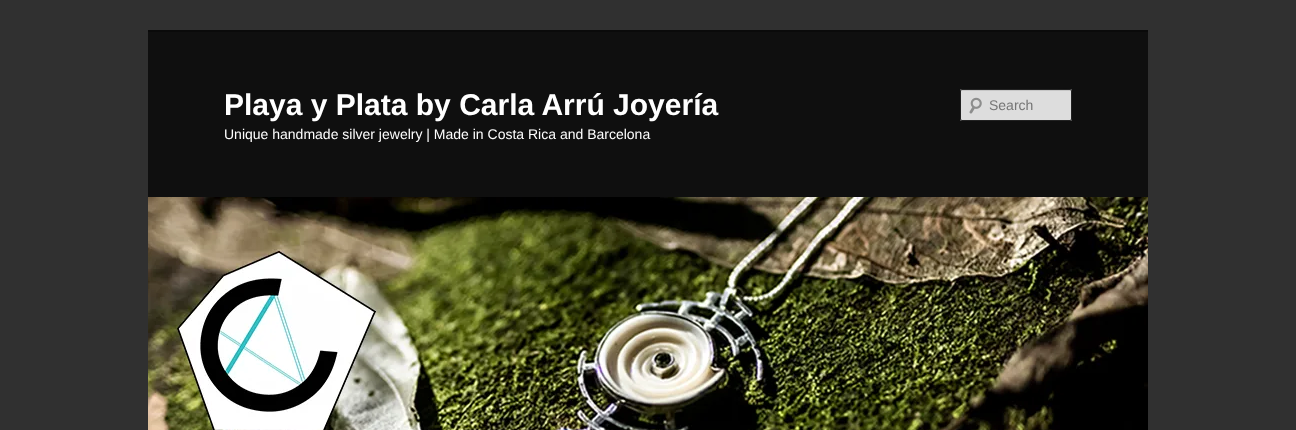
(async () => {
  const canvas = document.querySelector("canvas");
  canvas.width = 1296;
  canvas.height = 430;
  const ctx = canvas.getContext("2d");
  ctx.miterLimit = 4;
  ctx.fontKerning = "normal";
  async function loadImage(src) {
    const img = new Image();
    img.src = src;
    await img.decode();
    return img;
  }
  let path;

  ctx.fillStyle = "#303030";
  ctx.fillRect(0, 0, 1296, 430);
  ctx.fillStyle = "#0f0f0f";
  ctx.fillRect(148, 32, 1000, 165);
  ctx.fillStyle = "#0a0a0a";
  ctx.fillRect(148, 30, 1000, 2);
  ctx.fillStyle = "#dddddd";
  ctx.beginPath();
  ctx.roundRect(960, 89, 112, 32, 2);
  ctx.fill();
  ctx.drawImage(await loadImage("img/1.png"), 969, 97, 13, 17);
  ctx.fillStyle = "rgba(0, 0, 0, 0.1)";
  path = new Path2D("M962 91H1071V92C1071 85 1056 90 1052 90H962L961 92C961 91 961 91 962 91Z");
  ctx.fill(path);
  ctx.beginPath();
  ctx.roundRect(960.5, 89.5, 111, 31, 1.5);
  ctx.strokeStyle = "#222222";
  ctx.stroke();
  ctx.drawImage(await loadImage("img/2.png"), 148, 197, 1000, 233);
  ctx.font = "bold 30px Liberation Sans";
  ctx.fillStyle = "#ffffff";
  ctx.fillText("Playa y Plata by Carla Arrú Joyería", 224, 115);
  ctx.font = "14px Liberation Sans";
  ctx.fillText("Unique handmade silver jewelry | Made in Costa Rica and Barcelona", 224, 139);
  ctx.fillStyle = "#757575";
  ctx.fillText("Search", 989, 110);
})();
